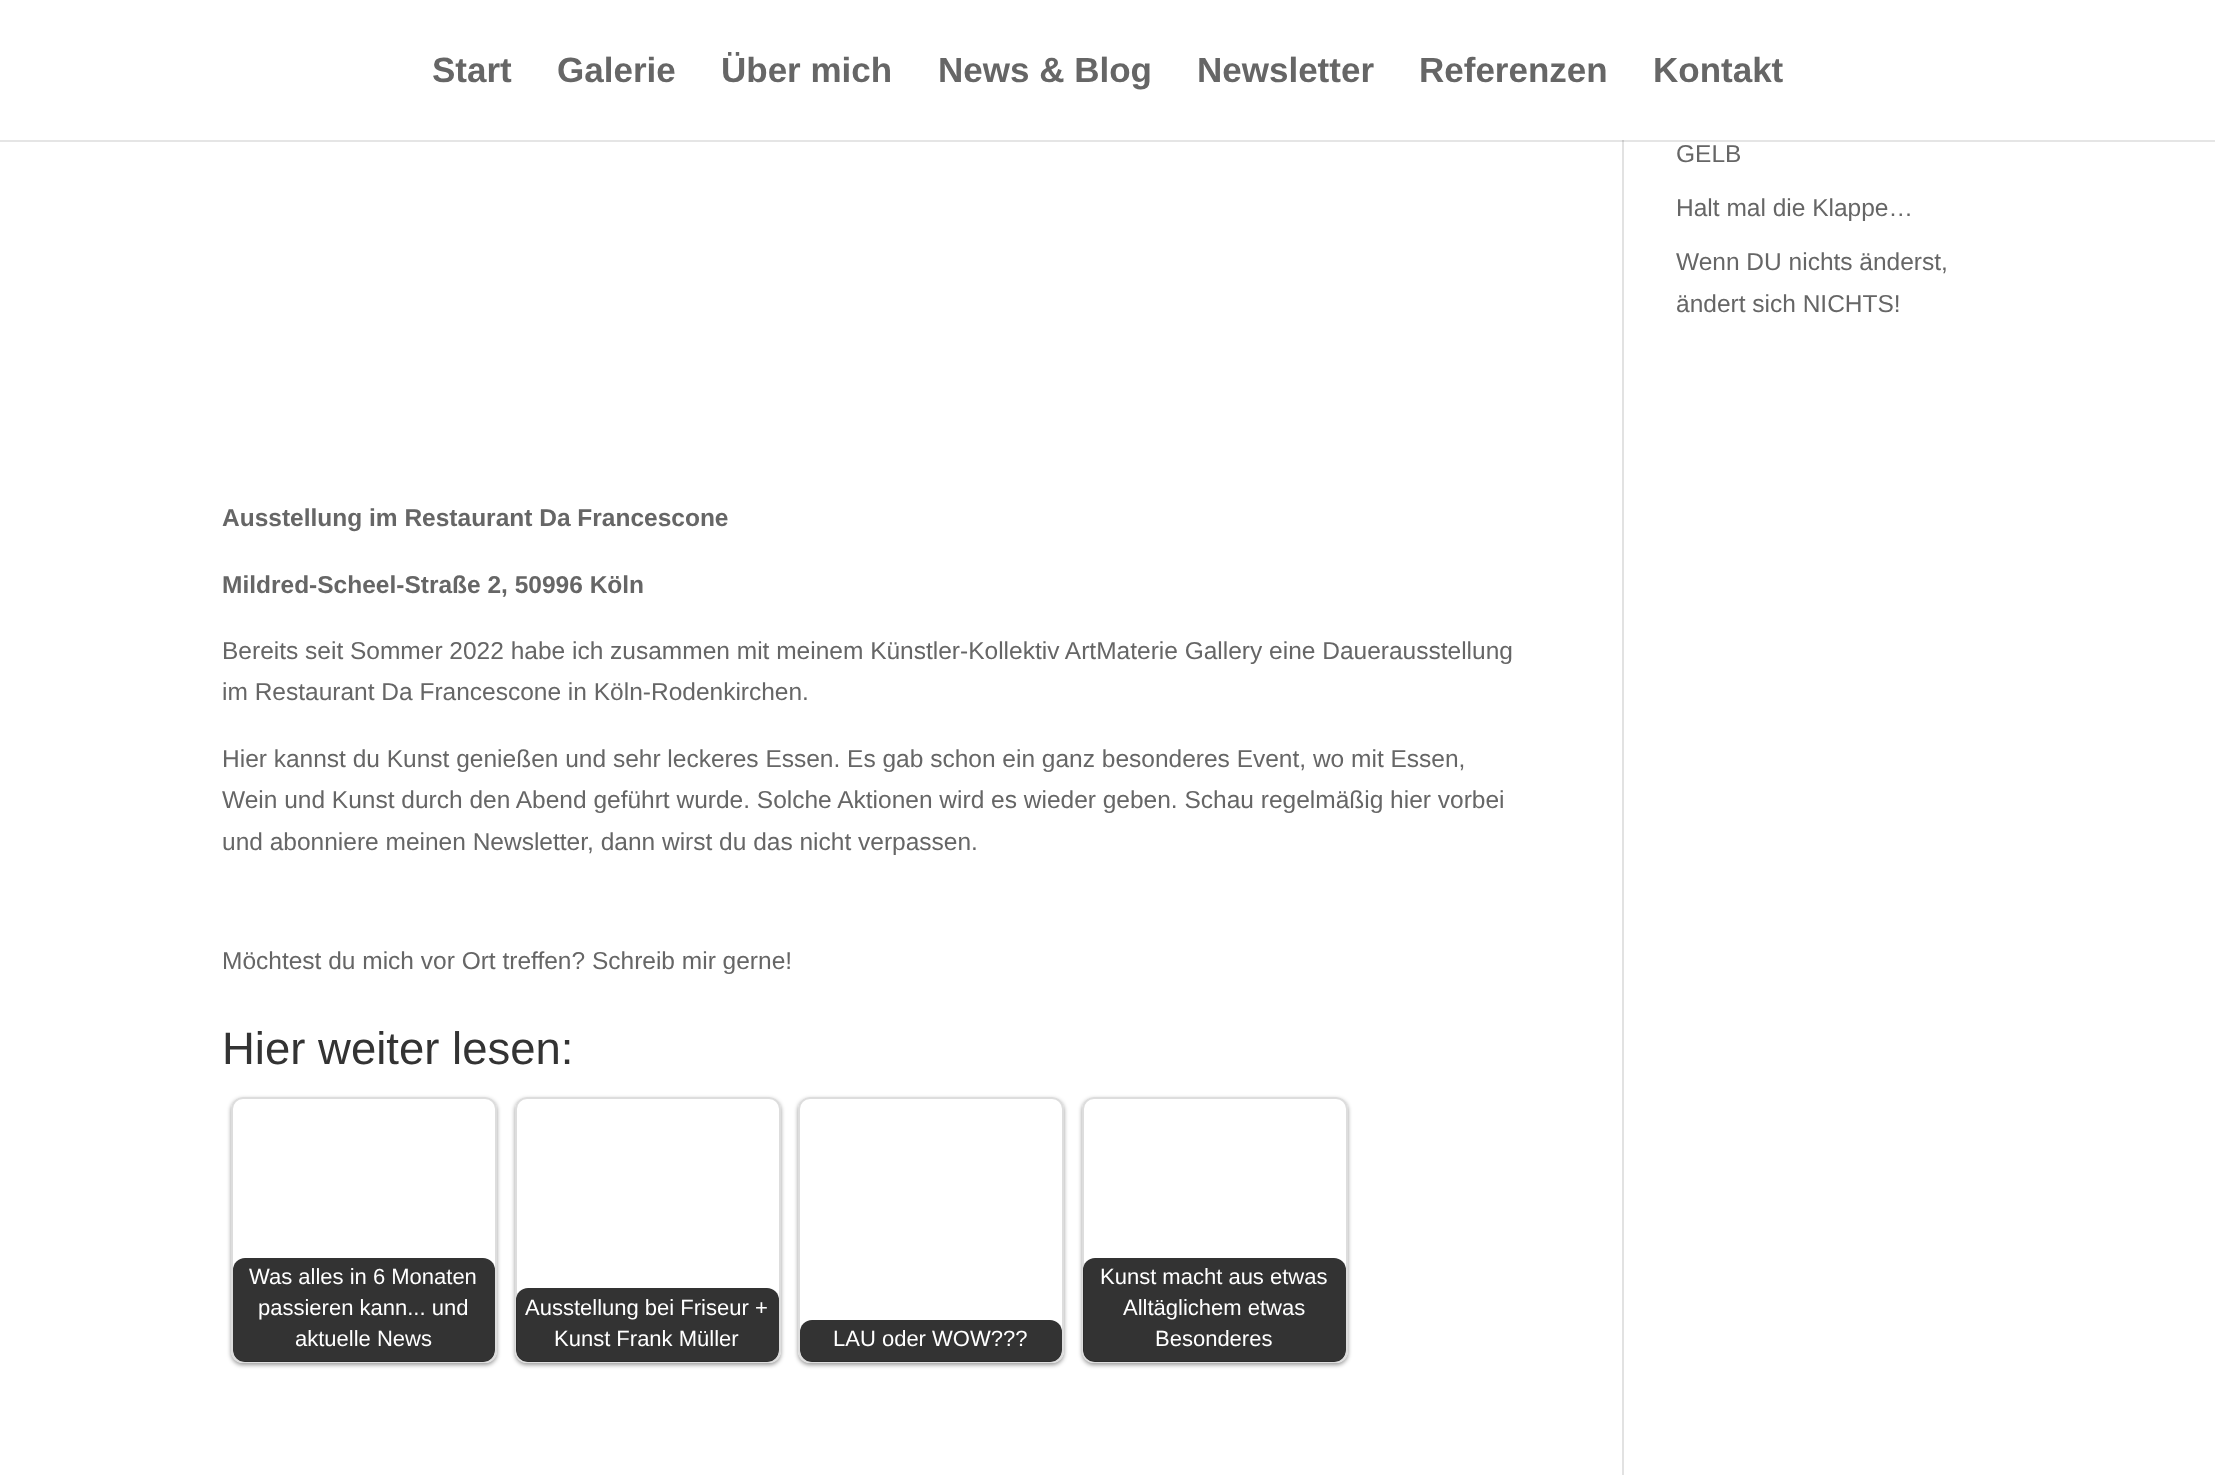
(async () => {
  const canvas = document.querySelector("canvas");
  canvas.width = 2215;
  canvas.height = 1475;
  const ctx = canvas.getContext("2d");
  ctx.miterLimit = 4;
  ctx.fontKerning = "normal";
  let path;

  ctx.fillStyle = "#ffffff";
  ctx.fillRect(0, 0, 2215, 1475);
  ctx.fillStyle = "#e2e2e2";
  ctx.fillRect(1622, 140, 2, 1335);
  ctx.fillStyle = "rgba(0, 0, 0, 0.1)";
  path = new Path2D("M0 140V142H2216V2V140Z");
  ctx.fill(path);
  ctx.save();
  path = new Path2D("M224 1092H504V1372H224ZM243 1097H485C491.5 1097 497 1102.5 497 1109V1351C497 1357.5 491.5 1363 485 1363H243C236.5 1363 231 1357.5 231 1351V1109C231 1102.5 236.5 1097 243 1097Z");
  ctx.clip(path, "evenodd");
  ctx.fillStyle = "rgba(0, 0, 0, 0.4)";
  ctx.filter = "blur(2px)";
  ctx.beginPath();
  ctx.roundRect(231, 1099, 266, 266, 12);
  ctx.fill();
  ctx.filter = "none";
  ctx.restore();
  ctx.beginPath();
  ctx.roundRect(232, 1098, 264, 264, 11);
  ctx.strokeStyle = "#dddddd";
  ctx.lineWidth = 2;
  ctx.stroke();
  ctx.save();
  ctx.beginPath();
  ctx.roundRect(233, 1099, 262, 263, 11);
  ctx.clip();
  ctx.fillStyle = "rgba(0, 0, 0, 0.8)";
  ctx.beginPath();
  ctx.roundRect(233, 1258, 262, 104, 12);
  ctx.fill();
  ctx.restore();
  ctx.save();
  path = new Path2D("M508 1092H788V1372H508ZM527 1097H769C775.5 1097 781 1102.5 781 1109V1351C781 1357.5 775.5 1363 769 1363H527C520.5 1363 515 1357.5 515 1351V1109C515 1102.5 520.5 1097 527 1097Z");
  ctx.clip(path, "evenodd");
  ctx.fillStyle = "rgba(0, 0, 0, 0.4)";
  ctx.filter = "blur(2px)";
  ctx.beginPath();
  ctx.roundRect(515, 1099, 266, 266, 12);
  ctx.fill();
  ctx.filter = "none";
  ctx.restore();
  ctx.beginPath();
  ctx.roundRect(516, 1098, 264, 264, 11);
  ctx.stroke();
  ctx.save();
  ctx.beginPath();
  ctx.roundRect(516, 1099, 263, 263, 11);
  ctx.clip();
  ctx.fillStyle = "rgba(0, 0, 0, 0.8)";
  ctx.beginPath();
  ctx.roundRect(516, 1288, 263, 74, 12);
  ctx.fill();
  ctx.restore();
  ctx.save();
  path = new Path2D("M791 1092H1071V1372H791ZM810 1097H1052C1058.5 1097 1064 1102.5 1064 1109V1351C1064 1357.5 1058.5 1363 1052 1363H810C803.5 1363 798 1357.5 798 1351V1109C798 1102.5 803.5 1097 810 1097Z");
  ctx.clip(path, "evenodd");
  ctx.fillStyle = "rgba(0, 0, 0, 0.4)";
  ctx.filter = "blur(2px)";
  ctx.beginPath();
  ctx.roundRect(798, 1099, 266, 266, 12);
  ctx.fill();
  ctx.filter = "none";
  ctx.restore();
  ctx.beginPath();
  ctx.roundRect(799, 1098, 264, 264, 11);
  ctx.stroke();
  ctx.save();
  ctx.beginPath();
  ctx.roundRect(800, 1099, 262, 263, 11);
  ctx.clip();
  ctx.fillStyle = "rgba(0, 0, 0, 0.8)";
  ctx.beginPath();
  ctx.roundRect(800, 1320, 262, 42, 12);
  ctx.fill();
  ctx.restore();
  ctx.save();
  path = new Path2D("M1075 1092H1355V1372H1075ZM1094 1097H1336C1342.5 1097 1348 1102.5 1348 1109V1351C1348 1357.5 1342.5 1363 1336 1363H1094C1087.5 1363 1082 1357.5 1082 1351V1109C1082 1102.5 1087.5 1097 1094 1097Z");
  ctx.clip(path, "evenodd");
  ctx.fillStyle = "rgba(0, 0, 0, 0.4)";
  ctx.filter = "blur(2px)";
  ctx.beginPath();
  ctx.roundRect(1082, 1099, 266, 266, 12);
  ctx.fill();
  ctx.filter = "none";
  ctx.restore();
  ctx.beginPath();
  ctx.roundRect(1083, 1098, 264, 264, 11);
  ctx.stroke();
  ctx.save();
  ctx.beginPath();
  ctx.roundRect(1083, 1099, 263, 263, 11);
  ctx.clip();
  ctx.fillStyle = "rgba(0, 0, 0, 0.8)";
  ctx.beginPath();
  ctx.roundRect(1083, 1258, 263, 104, 12);
  ctx.fill();
  ctx.restore();
  ctx.font = "bold 35px Liberation Sans";
  ctx.fillStyle = "#666666";
  for (const [text, x, y] of [
    ["Start", 432, 82],
    ["Galerie", 557, 82],
    ["Über mich", 721, 82],
    ["News & Blog", 938, 82],
    ["Newsletter", 1197, 82],
    ["Referenzen", 1419, 82],
    ["Kontakt", 1653, 82],
  ]) {
    ctx.fillText(text, x, y);
  }
  ctx.font = "24.5px Liberation Sans";
  for (const [text, x, y] of [
    ["GELB", 1676, 162],
    ["Halt mal die Klappe…", 1676, 216],
    ["Wenn DU nichts änderst,", 1676, 270],
    ["ändert sich NICHTS!", 1676, 312],
  ]) {
    ctx.fillText(text, x, y);
  }
  ctx.font = "bold 24.5px Liberation Sans";
  ctx.fillText("Ausstellung im Restaurant Da Francescone", 222, 526);
  ctx.fillText("Mildred-Scheel-Straße 2, 50996 Köln", 222, 593);
  ctx.font = "24.5px Liberation Sans";
  for (const [text, x, y] of [
    ["Bereits seit Sommer 2022 habe ich zusammen mit meinem Künstler-Kollektiv ArtMaterie Gallery eine Dauerausstellung", 222, 659],
    ["im Restaurant Da Francescone in Köln-Rodenkirchen.", 222, 700],
    ["Hier kannst du Kunst genießen und sehr leckeres Essen. Es gab schon ein ganz besonderes Event, wo mit Essen,", 222, 767],
    ["Wein und Kunst durch den Abend geführt wurde. Solche Aktionen wird es wieder geben. Schau regelmäßig hier vorbei", 222, 808],
    ["und abonniere meinen Newsletter, dann wirst du das nicht verpassen.", 222, 850],
    ["Möchtest du mich vor Ort treffen? Schreib mir gerne!", 222, 969],
  ]) {
    ctx.fillText(text, x, y);
  }
  ctx.font = "45.5px Liberation Sans";
  ctx.fillStyle = "#333333";
  ctx.fillText("Hier weiter lesen:", 222, 1064);
  ctx.font = "22px Liberation Sans";
  ctx.fillStyle = "#ffffff";
  for (const [text, x, y] of [
    ["Was alles in 6 Monaten", 249, 1284],
    ["passieren kann... und", 258, 1315],
    ["aktuelle News", 295, 1346],
    ["Ausstellung bei Friseur +", 525, 1315],
    ["Kunst Frank Müller", 554, 1346],
    ["LAU oder WOW???", 833, 1346],
    ["Kunst macht aus etwas", 1100, 1284],
    ["Alltäglichem etwas", 1123, 1315],
    ["Besonderes", 1155, 1346],
  ]) {
    ctx.fillText(text, x, y);
  }
})();
